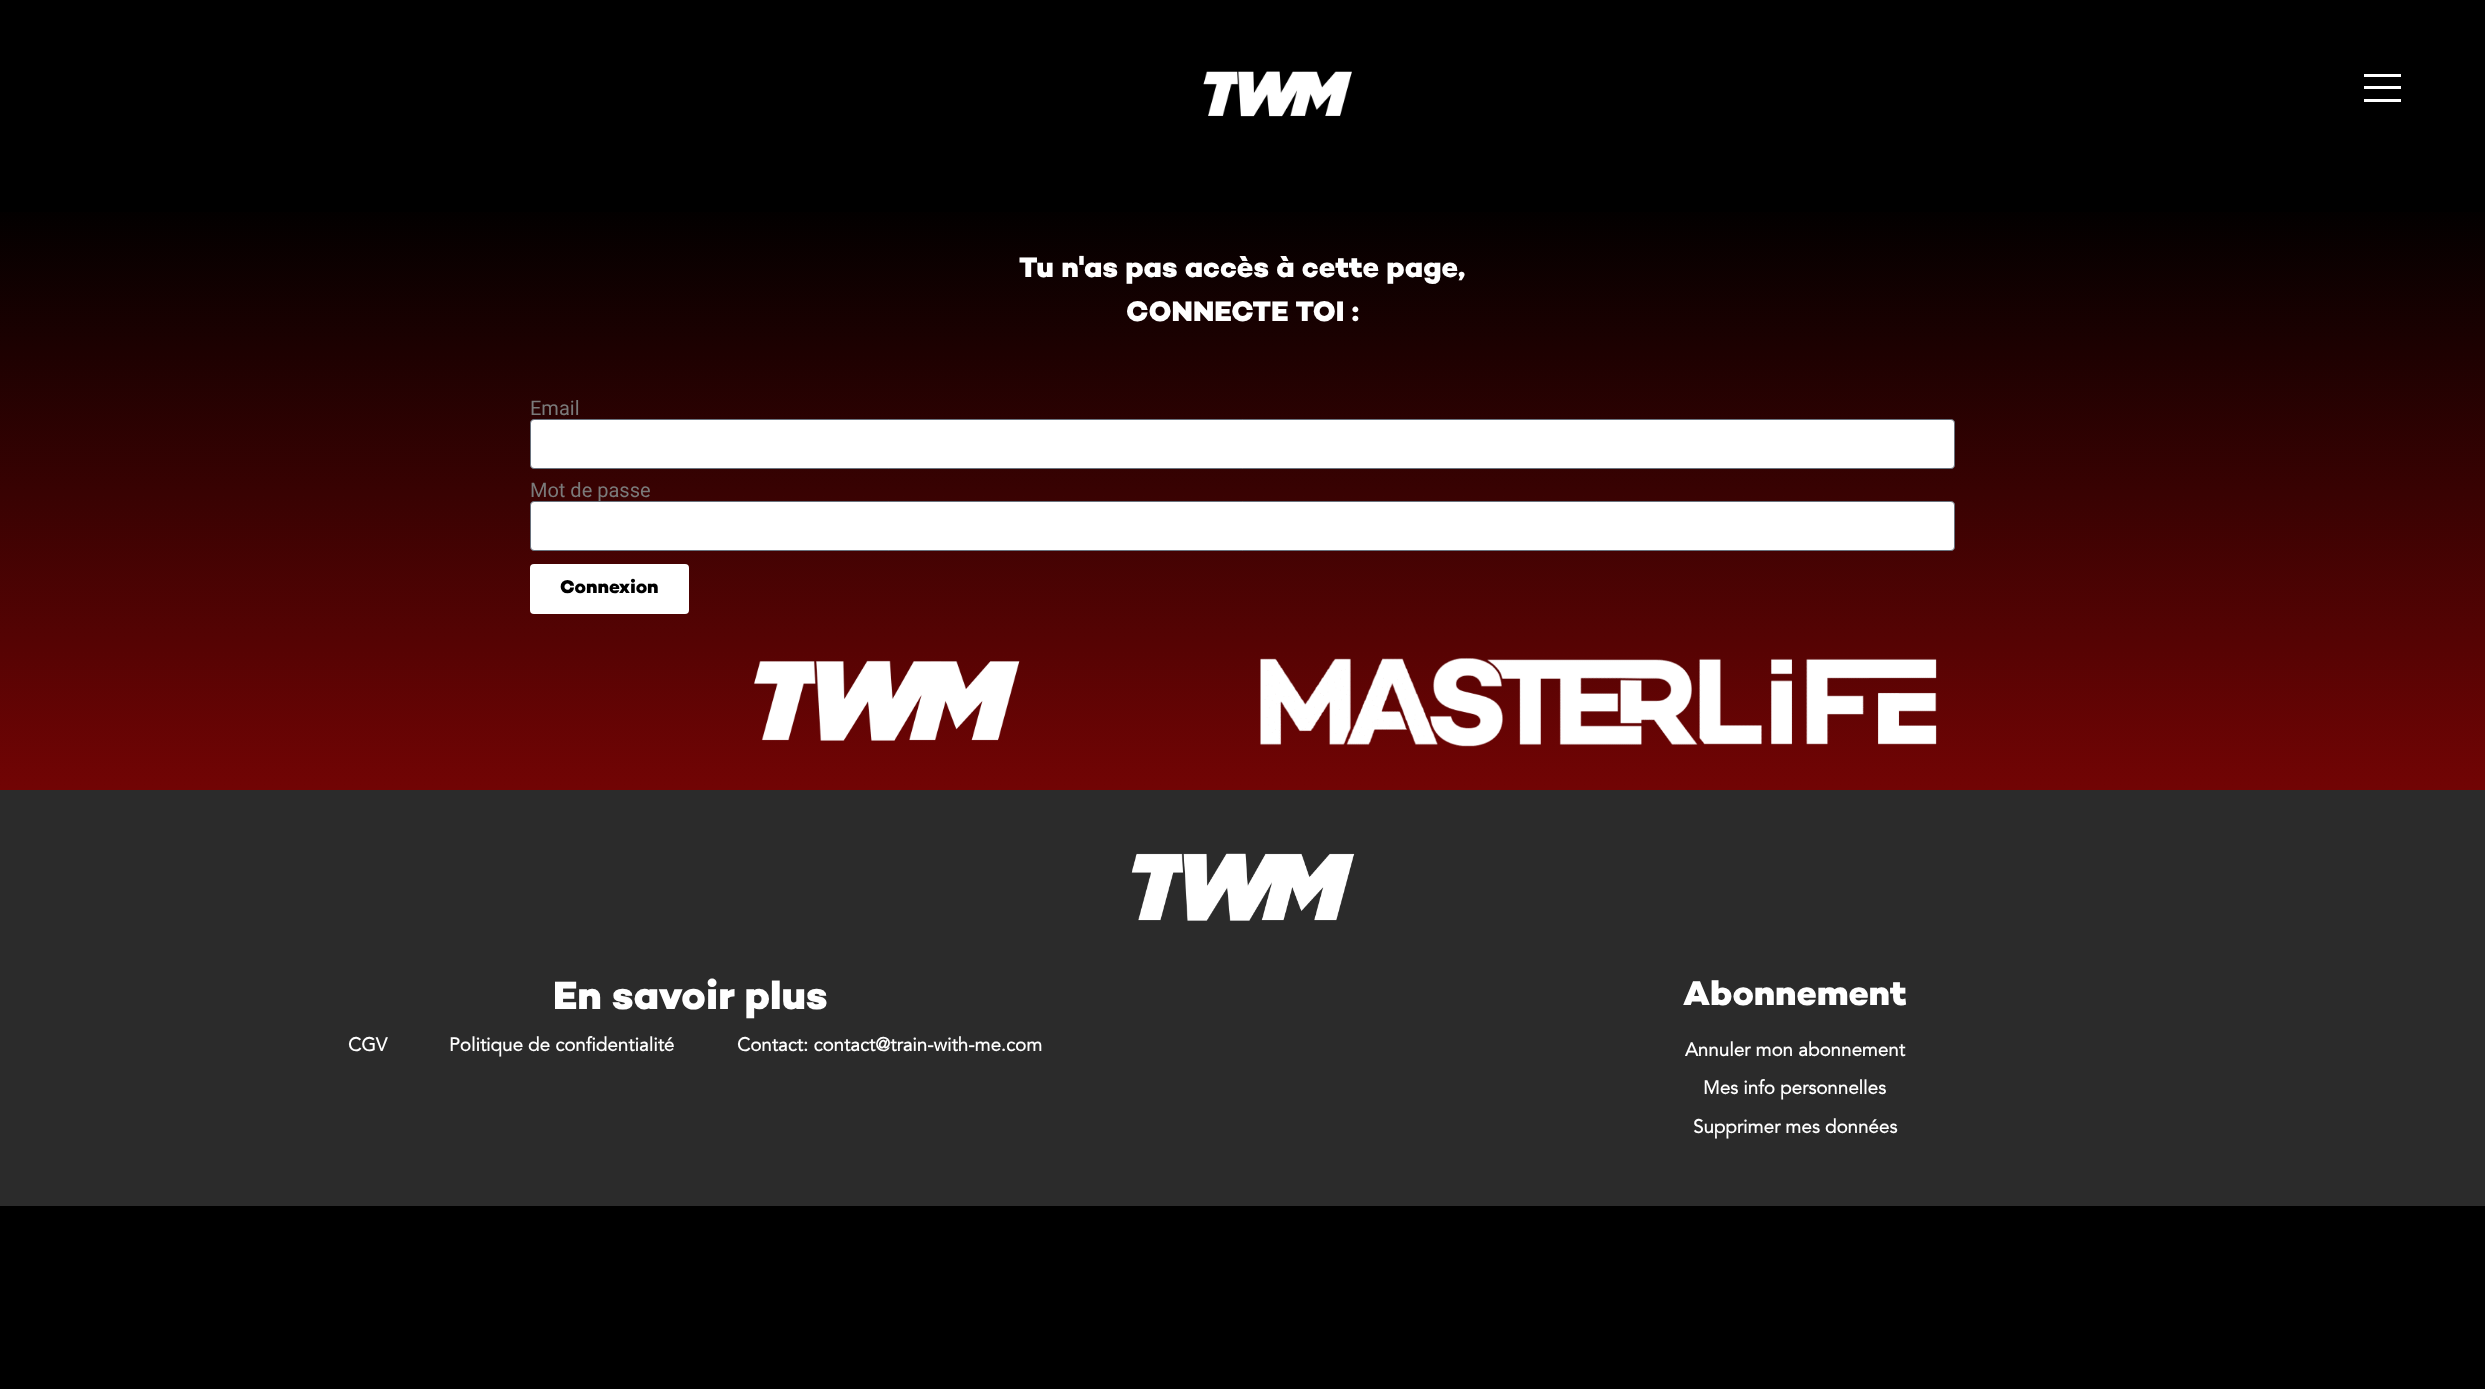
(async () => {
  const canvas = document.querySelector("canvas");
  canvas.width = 2485;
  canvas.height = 1389;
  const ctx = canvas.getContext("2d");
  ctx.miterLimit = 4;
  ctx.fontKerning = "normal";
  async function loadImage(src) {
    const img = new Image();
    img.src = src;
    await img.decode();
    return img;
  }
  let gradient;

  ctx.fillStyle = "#000000";
  ctx.fillRect(0, 0, 2485, 1389);
  ctx.drawImage(await loadImage("img/1.png"), 1203, 71, 149, 46);
  for (const [x, y, w, h, color] of [
    [2364, 86, 37, 3, "#ffffff"],
    [2364, 74, 37, 3, "#ffffff"],
    [2364, 99, 37, 3, "#ffffff"],
  ]) {
    ctx.fillStyle = color;
    ctx.fillRect(x, y, w, h);
  }
  gradient = ctx.createLinearGradient(1243, 199, 1243, 790);
  gradient.addColorStop(0, "#000000");
  gradient.addColorStop(1, "#720404");
  ctx.fillStyle = gradient;
  ctx.fillRect(0, 212, 2485, 578);
  ctx.fillStyle = "#ffffff";
  ctx.beginPath();
  ctx.roundRect(530.5, 419.5, 1424, 49, 3.5);
  ctx.fill();
  ctx.strokeStyle = "#69727d";
  ctx.stroke();
  ctx.beginPath();
  ctx.roundRect(530, 564, 159, 50, 4);
  ctx.fill();
  ctx.drawImage(await loadImage("img/2.png"), 753, 660, 267, 81);
  ctx.drawImage(await loadImage("img/3.png"), 1260, 657, 677, 90);
  ctx.fillStyle = "#2b2b2b";
  ctx.fillRect(0, 790, 2485, 416);
  ctx.drawImage(await loadImage("img/4.png"), 1131, 853, 224, 68);
  ctx.font = "800 28.75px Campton";
  ctx.fillStyle = "#ffffff";
  ctx.fillText("Tu n'as pas accès à cette page,", 1019, 277);
  ctx.fillText("CONNECTE TOI :", 1126, 321);
  ctx.font = "20px Roboto";
  ctx.fillStyle = "#7a7a7a";
  ctx.fillText("Email", 530, 415);
  ctx.fillText("Mot de passe", 530, 497);
  ctx.fillStyle = "#ffffff";
  ctx.beginPath();
  ctx.roundRect(530.5, 501.5, 1424, 49, 3.5);
  ctx.fill();
  ctx.stroke();
  ctx.font = "800 18.75px Campton";
  ctx.fillStyle = "#000000";
  ctx.fillText("Connexion", 560, 593);
  ctx.font = "800 40px Campton";
  ctx.fillStyle = "#ffffff";
  ctx.fillText("En savoir plus", 553, 1009);
  ctx.font = "bold 18.75px Avenir";
  for (const [text, x, y] of [
    ["CGV", 348, 1051],
    ["Politique de confidentialité", 449, 1051],
    ["Contact: contact@train-with-me.com", 737, 1051],
  ]) {
    ctx.fillText(text, x, y);
  }
  ctx.font = "800 35px Campton";
  ctx.fillText("Abonnement", 1683, 1005);
  ctx.font = "bold 18.75px Avenir";
  for (const [text, x, y] of [
    ["Annuler mon abonnement", 1685, 1056],
    ["Mes info personnelles", 1703, 1094],
    ["Supprimer mes données", 1693, 1133],
  ]) {
    ctx.fillText(text, x, y);
  }
})();
